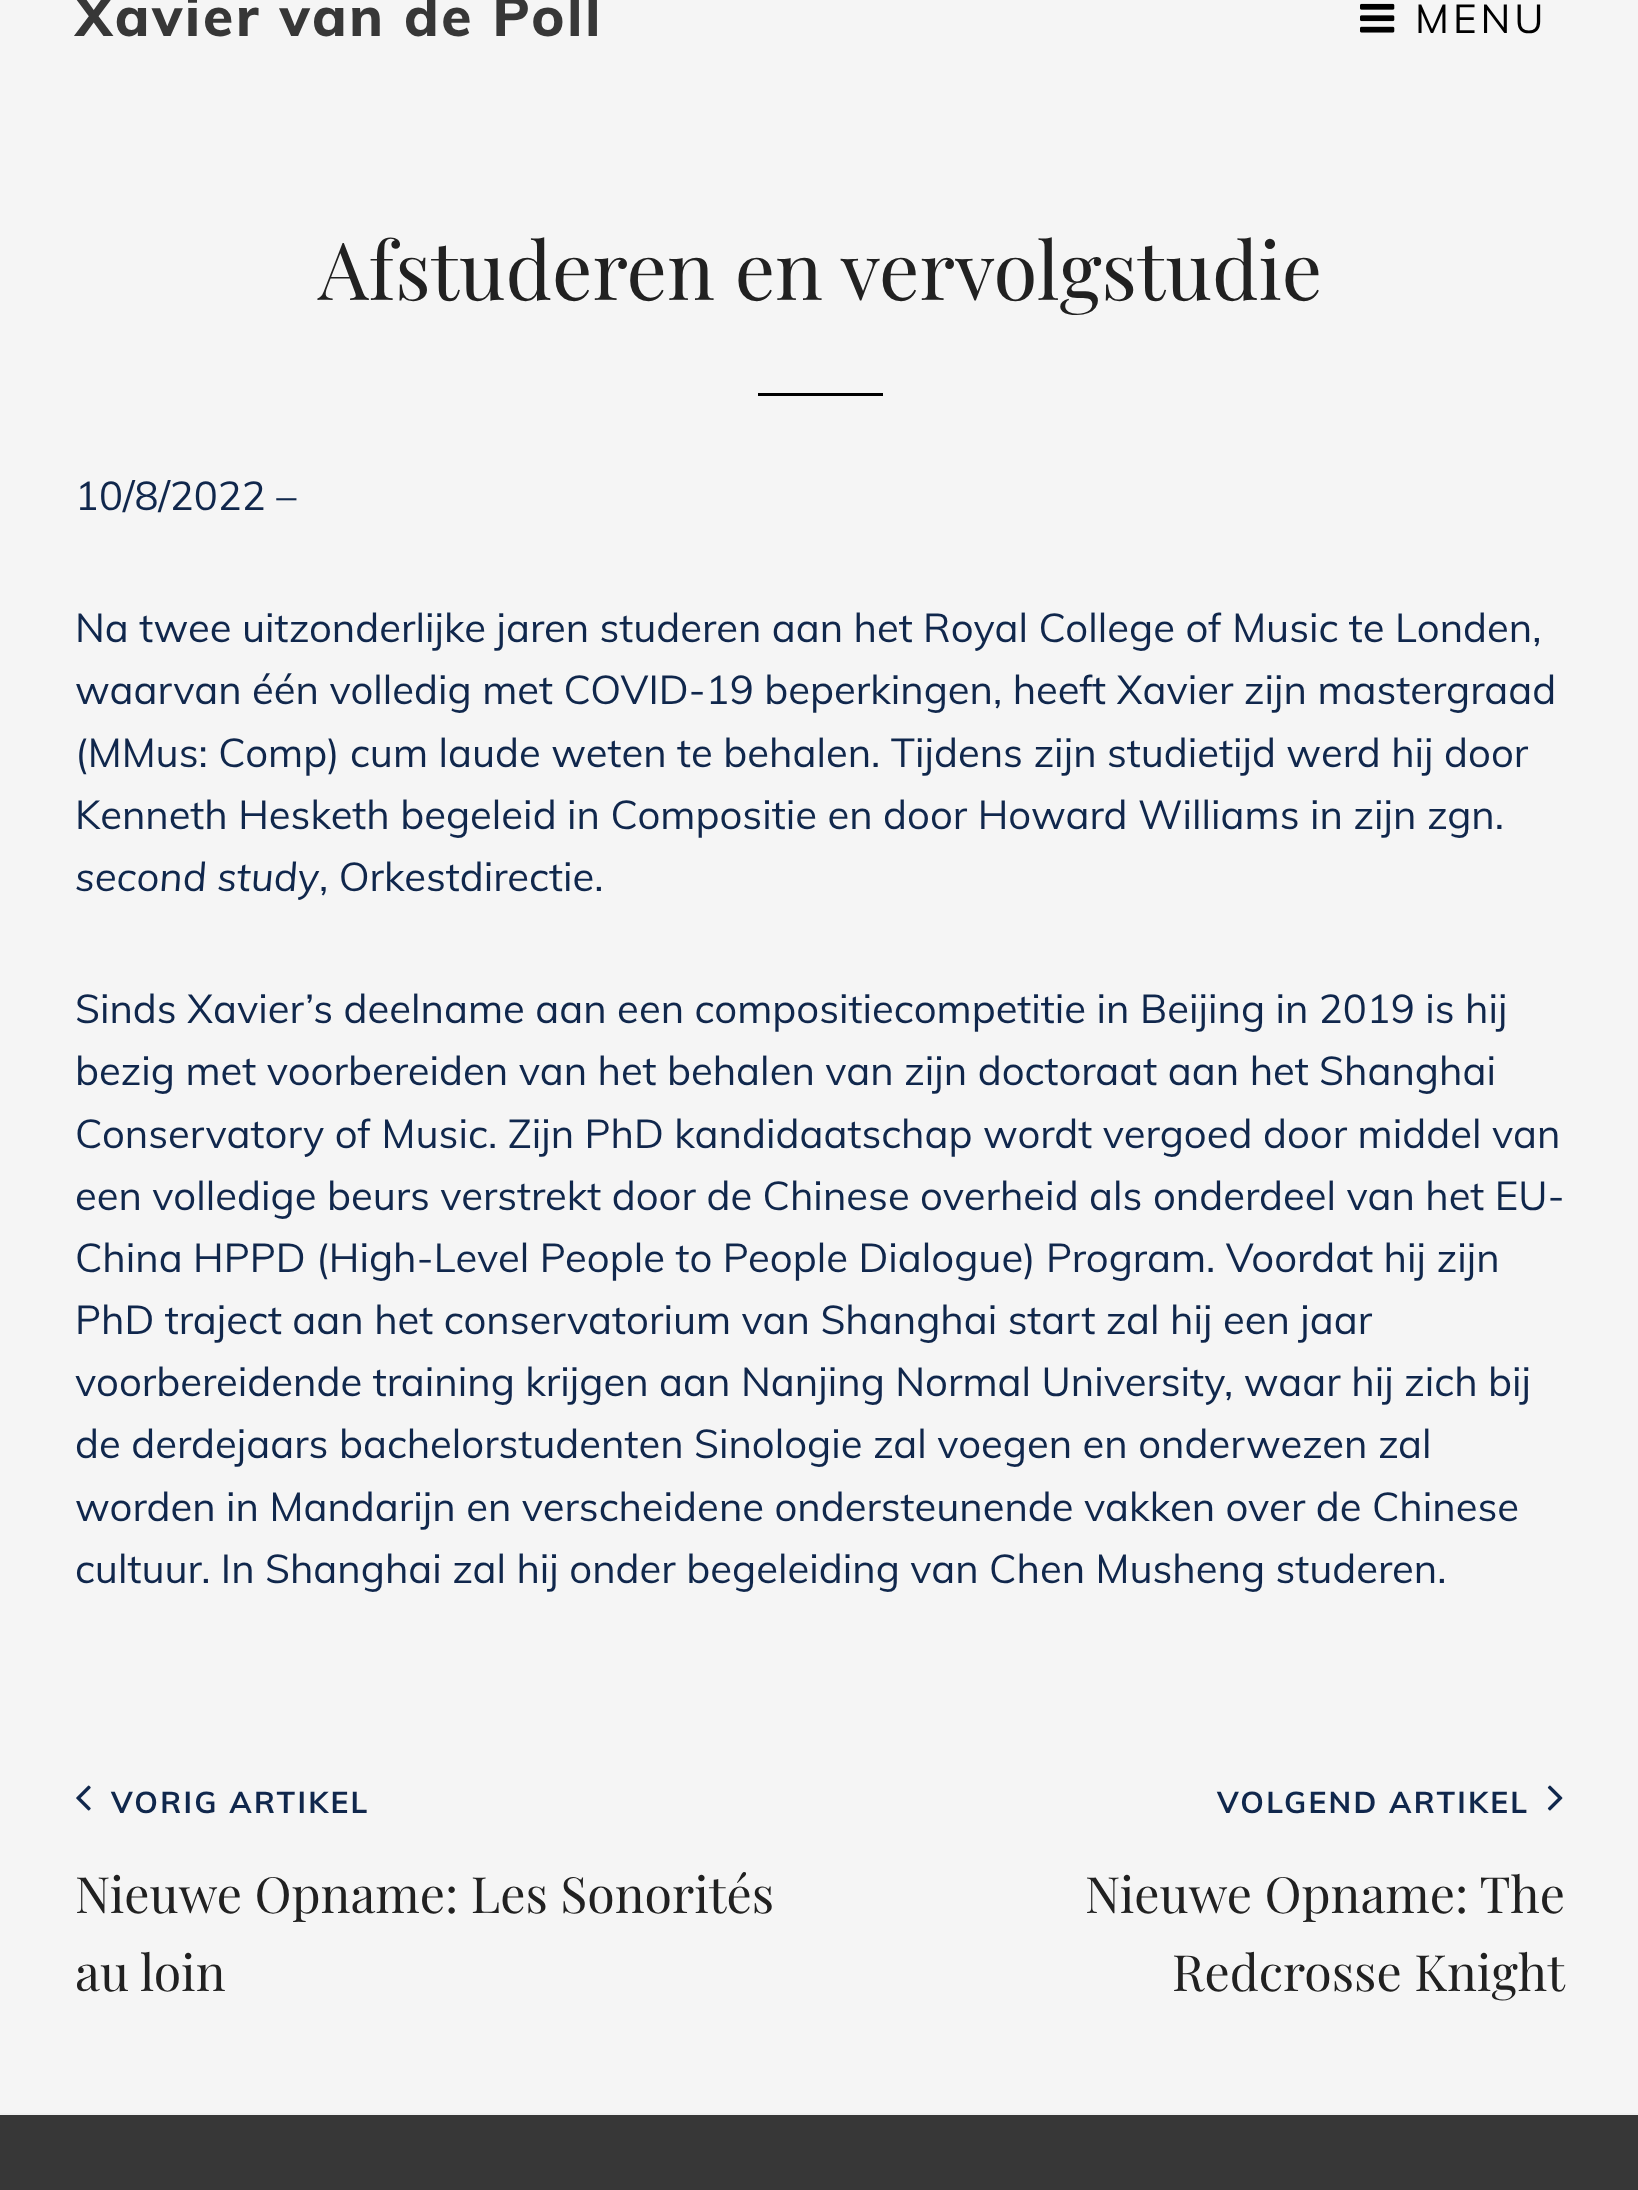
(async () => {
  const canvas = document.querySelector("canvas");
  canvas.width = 1638;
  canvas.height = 2190;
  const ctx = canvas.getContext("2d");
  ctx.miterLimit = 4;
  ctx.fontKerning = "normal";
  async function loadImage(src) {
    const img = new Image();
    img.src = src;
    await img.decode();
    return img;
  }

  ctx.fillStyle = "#f5f5f5";
  ctx.fillRect(0, 0, 1638, 2190);
  ctx.drawImage(await loadImage("img/1.png"), 1360, 3, 35, 30);
  ctx.fillStyle = "#f0f0f0";
  ctx.fillRect(0, 2113, 1638, 2);
  ctx.fillStyle = "#000000";
  ctx.fillRect(758, 393, 125, 3);
  ctx.drawImage(await loadImage("img/2.png"), 76, 1785, 15, 26);
  ctx.drawImage(await loadImage("img/3.png"), 1547, 1785, 16, 26);
  ctx.fillStyle = "#373737";
  ctx.fillRect(0, 2115, 1638, 75);
  ctx.letterSpacing = "2.75px";
  ctx.font = "800 55px Muli";
  ctx.fillText("Xavier van de Poll", 75, 36);
  ctx.letterSpacing = "4px";
  ctx.font = "40px Muli";
  ctx.fillStyle = "#000000";
  ctx.fillText("MENU", 1415, 33);
  ctx.letterSpacing = "0px";
  ctx.font = "80px Playfair Display";
  ctx.fillStyle = "#212121";
  ctx.fillText("Afstuderen en vervolgstudie", 318, 300);
  ctx.font = "40px Muli";
  ctx.fillStyle = "#10274c";
  for (const [text, x, y] of [
    ["10/8/2022 –", 75, 510],
    ["Na twee uitzonderlijke jaren studeren aan het Royal College of Music te Londen,", 75, 642],
    ["waarvan één volledig met COVID-19 beperkingen, heeft Xavier zijn mastergraad", 75, 704],
    ["(MMus: Comp) cum laude weten te behalen. Tijdens zijn studietijd werd hij door", 75, 767],
    ["Kenneth Hesketh begeleid in Compositie en door Howard Williams in zijn zgn.", 75, 829],
  ]) {
    ctx.fillText(text, x, y);
  }
  ctx.font = "italic 40px Muli";
  ctx.fillText("second study", 75, 891);
  ctx.font = "40px Muli";
  for (const [text, x, y] of [
    [", Orkestdirectie.", 319, 891],
    ["Sinds Xavier’s deelname aan een compositiecompetitie in Beijing in 2019 is hij", 75, 1023],
    ["bezig met voorbereiden van het behalen van zijn doctoraat aan het Shanghai", 75, 1085],
    ["Conservatory of Music. Zijn PhD kandidaatschap wordt vergoed door middel van", 75, 1148],
    ["een volledige beurs verstrekt door de Chinese overheid als onderdeel van het EU-", 75, 1210],
    ["China HPPD (High-Level People to People Dialogue) Program. Voordat hij zijn", 75, 1272],
    ["PhD traject aan het conservatorium van Shanghai start zal hij een jaar", 75, 1334],
    ["voorbereidende training krijgen aan Nanjing Normal University, waar hij zich bij", 75, 1396],
    ["de derdejaars bachelorstudenten Sinologie zal voegen en onderwezen zal", 75, 1458],
    ["worden in Mandarijn en verscheidene ondersteunende vakken over de Chinese", 75, 1521],
    ["cultuur. In Shanghai zal hij onder begeleiding van Chen Musheng studeren.", 75, 1583],
  ]) {
    ctx.fillText(text, x, y);
  }
  ctx.letterSpacing = "2.25px";
  ctx.font = "bold 30px Muli";
  ctx.fillText("VORIG ARTIKEL", 111, 1813);
  ctx.letterSpacing = "0px";
  ctx.font = "50px Playfair Display";
  ctx.fillStyle = "#212121";
  ctx.fillText("Nieuwe Opname: Les Sonorités", 75, 1913);
  ctx.fillText("au loin", 75, 1991);
  ctx.letterSpacing = "2.25px";
  ctx.font = "bold 30px Muli";
  ctx.fillStyle = "#10274c";
  ctx.fillText("VOLGEND ARTIKEL", 1217, 1813);
  ctx.letterSpacing = "0px";
  ctx.font = "50px Playfair Display";
  ctx.fillStyle = "#212121";
  ctx.fillText("Nieuwe Opname: The", 1085, 1913);
  ctx.fillText("Redcrosse Knight", 1172, 1991);
})();
